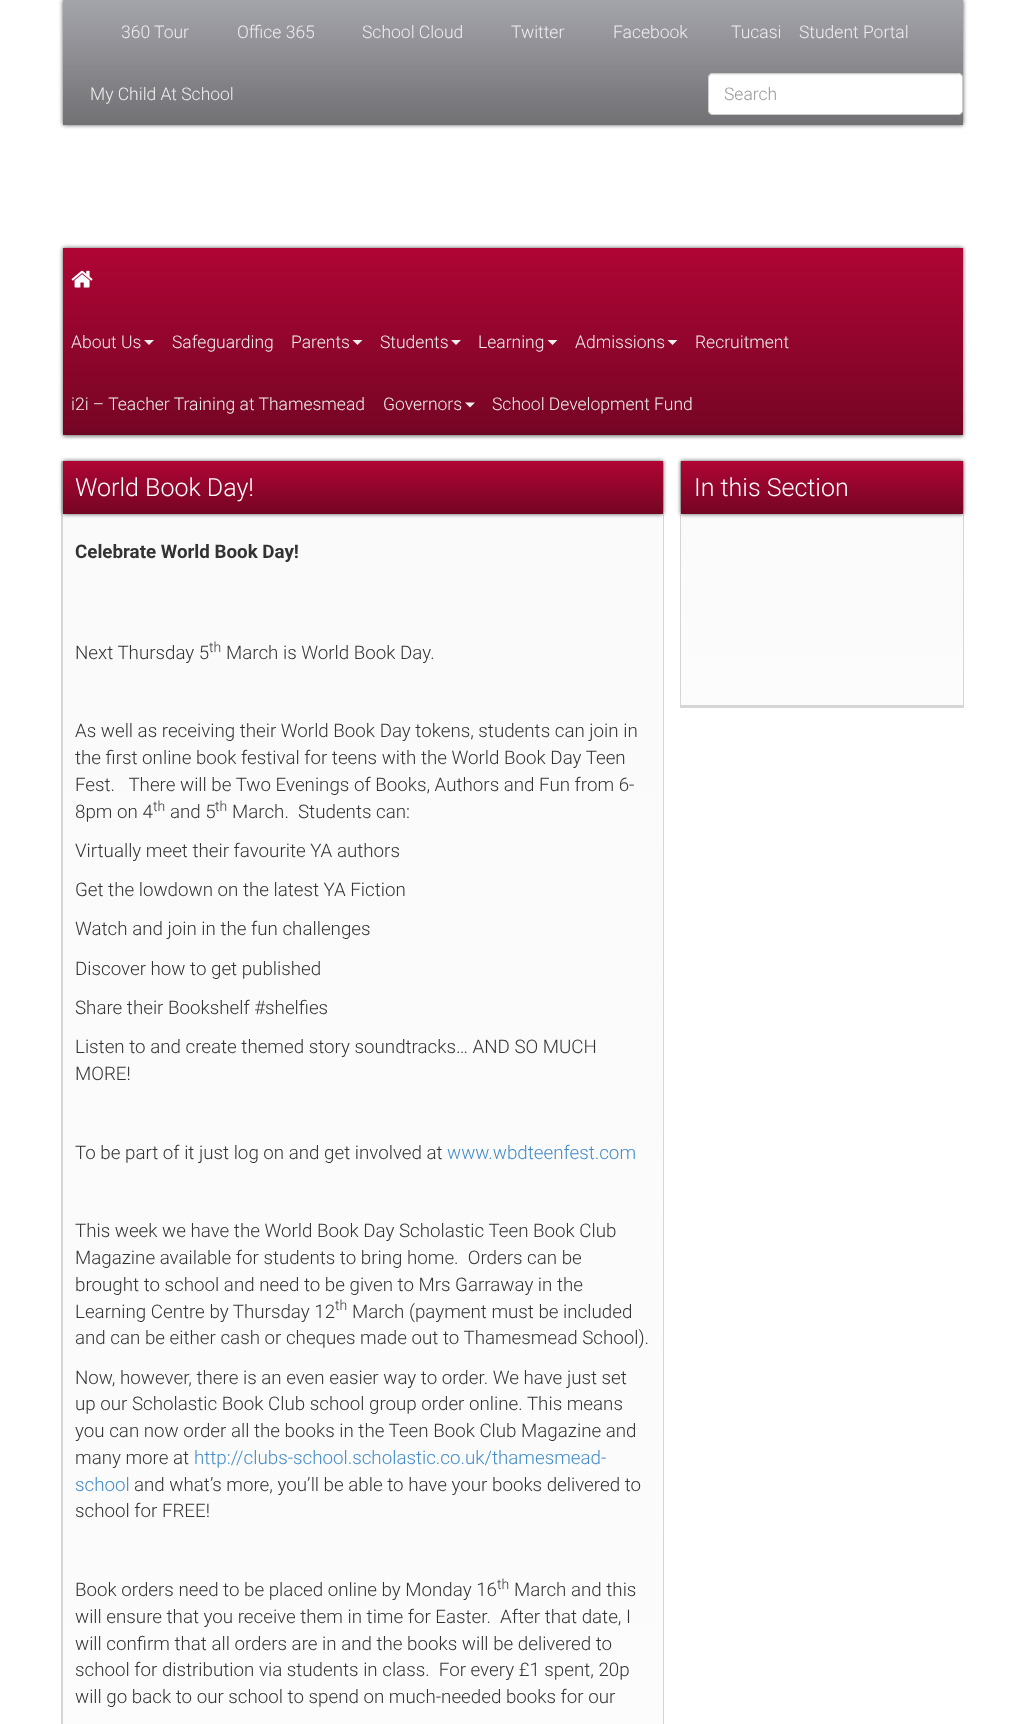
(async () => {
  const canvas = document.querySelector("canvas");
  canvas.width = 1024;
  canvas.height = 1724;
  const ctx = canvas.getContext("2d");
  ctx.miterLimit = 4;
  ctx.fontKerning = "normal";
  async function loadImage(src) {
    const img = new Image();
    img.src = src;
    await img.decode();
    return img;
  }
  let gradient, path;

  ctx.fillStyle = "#ffffff";
  ctx.fillRect(0, 0, 1024, 1724);
  ctx.fillStyle = "rgba(25, 25, 25, 0.75)";
  ctx.filter = "blur(2px)";
  ctx.beginPath();
  ctx.rect(63, 0, 900, 125);
  ctx.fill();
  ctx.filter = "none";
  gradient = ctx.createLinearGradient(513, 0, 513, 125);
  gradient.addColorStop(0, "#a4a4ab");
  gradient.addColorStop(1, "#717174");
  ctx.fillStyle = gradient;
  ctx.fillRect(63, 0, 900, 125);
  ctx.fillStyle = "#ffffff";
  ctx.beginPath();
  ctx.roundRect(708, 73, 255, 42, 5);
  ctx.fill();
  ctx.fillStyle = "#ececec";
  path = new Path2D("M712 75H958C960 75 961 77 961 79V78C961 76 959 74 957 74H713C711 74 709 76 709 78V79C709 77 710 75 712 75Z");
  ctx.fill(path);
  ctx.beginPath();
  ctx.roundRect(708.5, 73.5, 254, 41, 4.5);
  ctx.strokeStyle = "#cccccc";
  ctx.stroke();
  ctx.fillStyle = "rgba(25, 25, 25, 0.75)";
  ctx.filter = "blur(2px)";
  ctx.beginPath();
  ctx.rect(63, 248, 900, 187);
  ctx.fill();
  ctx.filter = "none";
  gradient = ctx.createLinearGradient(513, 247, 513, 435);
  gradient.addColorStop(0, "#b00535");
  gradient.addColorStop(1, "#750524");
  ctx.fillStyle = gradient;
  ctx.fillRect(63, 248, 900, 187);
  ctx.drawImage(await loadImage("img/1.png"), 71, 270, 22, 18);
  ctx.fillStyle = "#eeeeee";
  path = new Path2D("M144 340H154L149 345Z");
  ctx.fill(path);
  path = new Path2D("M352.5 340H362.5L357.5 345Z");
  ctx.fill(path);
  path = new Path2D("M451 340H461L456 345Z");
  ctx.fill(path);
  path = new Path2D("M547.5 340H557.5L552.5 345Z");
  ctx.fill(path);
  path = new Path2D("M667.5 340H677.5L672.5 345Z");
  ctx.fill(path);
  path = new Path2D("M465 402.5H475L470 407.5Z");
  ctx.fill(path);
  ctx.fillStyle = "rgba(25, 25, 25, 0.75)";
  ctx.filter = "blur(2px)";
  ctx.beginPath();
  ctx.rect(63, 435, 900, 1);
  ctx.fill();
  ctx.filter = "none";
  ctx.fillStyle = "#d6d6d6";
  ctx.filter = "blur(0.5px)";
  ctx.beginPath();
  ctx.rect(61, 461, 603, 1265);
  ctx.fill();
  ctx.filter = "none";
  gradient = ctx.createLinearGradient(362, 461, 363, 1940);
  gradient.addColorStop(0, "#fafafa");
  gradient.addColorStop(1, "#fcfcfc");
  ctx.fillStyle = gradient;
  ctx.fillRect(63, 514, 600, 1210);
  ctx.fillStyle = "rgba(25, 25, 25, 0.75)";
  ctx.filter = "blur(2px)";
  ctx.beginPath();
  ctx.rect(63, 461, 600, 53);
  ctx.fill();
  ctx.filter = "none";
  gradient = ctx.createLinearGradient(363, 461, 363, 514);
  gradient.addColorStop(0, "#b00535");
  gradient.addColorStop(1, "#750524");
  ctx.fillStyle = gradient;
  ctx.fillRect(63, 461, 600, 53);
  ctx.fillStyle = "#d6d6d6";
  ctx.filter = "blur(0.5px)";
  ctx.beginPath();
  ctx.rect(680, 461, 284, 247);
  ctx.fill();
  ctx.filter = "none";
  gradient = ctx.createLinearGradient(822, 461, 822, 705);
  gradient.addColorStop(0, "#fafafa");
  gradient.addColorStop(1, "#fcfcfc");
  ctx.fillStyle = gradient;
  ctx.fillRect(681, 514, 282, 191);
  ctx.fillStyle = "rgba(25, 25, 25, 0.75)";
  ctx.filter = "blur(2px)";
  ctx.beginPath();
  ctx.rect(681, 461, 282, 53);
  ctx.fill();
  ctx.filter = "none";
  gradient = ctx.createLinearGradient(822, 461, 822, 514);
  gradient.addColorStop(0, "#b00535");
  gradient.addColorStop(1, "#750524");
  ctx.fillStyle = gradient;
  ctx.fillRect(681, 461, 282, 53);
  ctx.font = "300 17.5px Roboto";
  ctx.fillStyle = "#eeeeee";
  for (const [text, x, y] of [
    ["360 Tour", 121, 38],
    ["Office 365", 237, 38],
    ["School Cloud", 362, 38],
    ["Twitter", 511, 38],
    ["Facebook", 613, 38],
    ["Tucasi", 731, 38],
    ["Student Portal", 799, 38],
    ["My Child At School", 90, 100],
  ]) {
    ctx.fillText(text, x, y);
  }
  ctx.fillStyle = "#999999";
  ctx.fillText("Search", 724, 100);
  ctx.fillStyle = "#eeeeee";
  for (const [text, x, y] of [
    ["About Us", 71, 348],
    ["Safeguarding", 172, 348],
    ["Parents", 291, 348],
    ["Students", 380, 348],
    ["Learning", 478, 348],
    ["Admissions", 575, 348],
    ["Recruitment", 695, 348],
    ["i2i – Teacher Training at Thamesmead", 71, 410],
    ["Governors", 383, 410],
    ["School Development Fund", 492, 410],
  ]) {
    ctx.fillText(text, x, y);
  }
  ctx.font = "300 25px Roboto";
  ctx.fillStyle = "#ffffff";
  ctx.fillText("World Book Day!", 75, 496);
  ctx.font = "bold 18.75px Roboto";
  ctx.fillStyle = "#333333";
  ctx.fillText("Celebrate World Book Day!", 75, 558);
  ctx.font = "300 18.75px Roboto";
  ctx.fillText("Next Thursday 5", 75, 659);
  ctx.font = "300 14px Roboto";
  ctx.fillText("th", 209, 652);
  ctx.font = "300 18.75px Roboto";
  for (const [text, x, y] of [
    ["March is World Book Day.", 226, 659],
    ["As well as receiving their World Book Day tokens, students can join in", 75, 737],
    ["the first online book festival for teens with the World Book Day Teen", 75, 764],
    ["Fest.   There will be Two Evenings of Books, Authors and Fun from 6-", 75, 791],
    ["8pm on 4", 75, 818],
  ]) {
    ctx.fillText(text, x, y);
  }
  ctx.font = "300 14px Roboto";
  ctx.fillText("th", 153, 811);
  ctx.font = "300 18.75px Roboto";
  ctx.fillText("and 5", 170, 818);
  ctx.font = "300 14px Roboto";
  ctx.fillText("th", 215, 811);
  ctx.font = "300 18.75px Roboto";
  for (const [text, x, y] of [
    ["March.  Students can:", 232, 818],
    ["Virtually meet their favourite YA authors", 75, 857],
    ["Get the lowdown on the latest YA Fiction", 75, 896],
    ["Watch and join in the fun challenges", 75, 935],
    ["Discover how to get published", 75, 975],
    ["Share their Bookshelf #shelfies", 75, 1014],
    ["Listen to and create themed story soundtracks… AND SO MUCH", 75, 1053],
    ["MORE!", 75, 1080],
    ["To be part of it just log on and get involved at", 75, 1159],
  ]) {
    ctx.fillText(text, x, y);
  }
  ctx.fillStyle = "#428bca";
  ctx.fillText("www.wbdteenfest.com", 447, 1159);
  ctx.fillStyle = "#333333";
  for (const [text, x, y] of [
    ["This week we have the World Book Day Scholastic Teen Book Club", 75, 1237],
    ["Magazine available for students to bring home.  Orders can be", 75, 1264],
    ["brought to school and need to be given to Mrs Garraway in the", 75, 1291],
    ["Learning Centre by Thursday 12", 75, 1318],
  ]) {
    ctx.fillText(text, x, y);
  }
  ctx.font = "300 14px Roboto";
  ctx.fillText("th", 335, 1310);
  ctx.font = "300 18.75px Roboto";
  for (const [text, x, y] of [
    ["March (payment must be included", 352, 1318],
    ["and can be either cash or cheques made out to Thamesmead School).", 75, 1344],
    ["Now, however, there is an even easier way to order. We have just set", 75, 1384],
    ["up our Scholastic Book Club school group order online. This means", 75, 1410],
    ["you can now order all the books in the Teen Book Club Magazine and", 75, 1437],
    ["many more at", 75, 1464],
  ]) {
    ctx.fillText(text, x, y);
  }
  ctx.fillStyle = "#428bca";
  ctx.fillText("http://clubs-school.scholastic.co.uk/thamesmead-", 194, 1464);
  ctx.fillText("school", 75, 1491);
  ctx.fillStyle = "#333333";
  for (const [text, x, y] of [
    ["and what’s more, you’ll be able to have your books delivered to", 134, 1491],
    ["school for FREE!", 75, 1517],
    ["Book orders need to be placed online by Monday 16", 75, 1596],
  ]) {
    ctx.fillText(text, x, y);
  }
  ctx.font = "300 14px Roboto";
  ctx.fillText("th", 497, 1589);
  ctx.font = "300 18.75px Roboto";
  for (const [text, x, y] of [
    ["March and this", 514, 1596],
    ["will ensure that you receive them in time for Easter.  After that date, I", 75, 1623],
    ["will confirm that all orders are in and the books will be delivered to", 75, 1650],
    ["school for distribution via students in class.  For every £1 spent, 20p", 75, 1676],
    ["will go back to our school to spend on much-needed books for our", 75, 1703],
  ]) {
    ctx.fillText(text, x, y);
  }
  ctx.font = "300 25px Roboto";
  ctx.fillStyle = "#ffffff";
  ctx.fillText("In this Section", 694, 496);
})();
